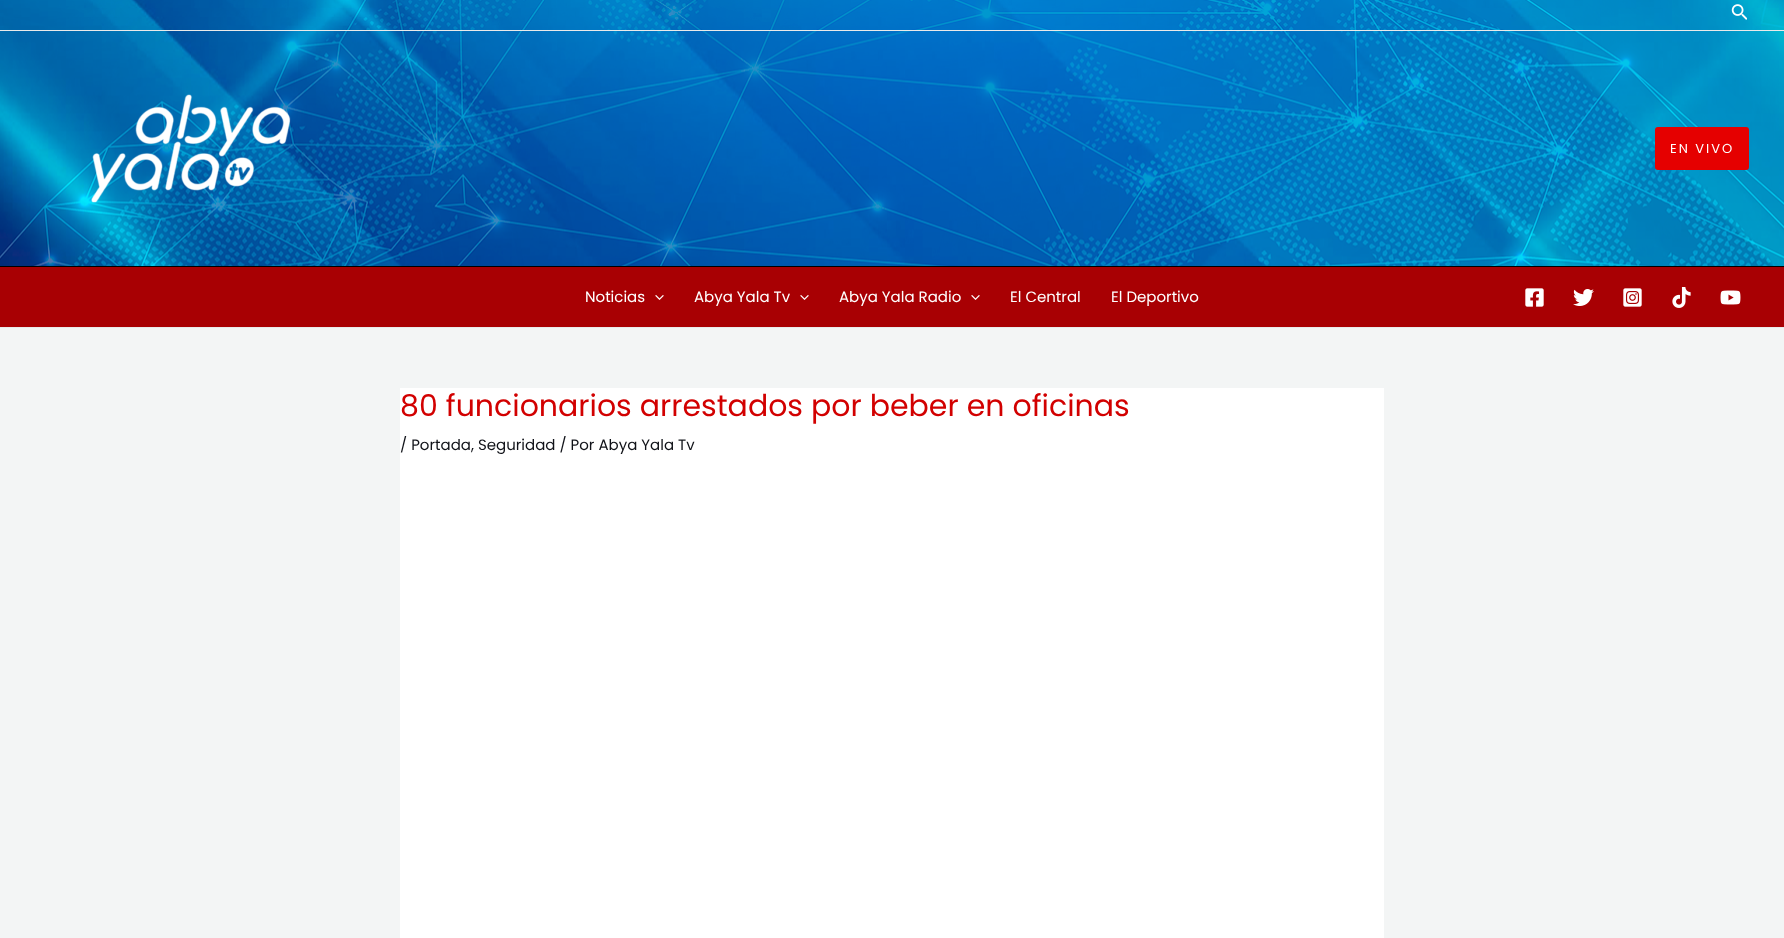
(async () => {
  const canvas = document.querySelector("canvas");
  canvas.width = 1784;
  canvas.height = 938;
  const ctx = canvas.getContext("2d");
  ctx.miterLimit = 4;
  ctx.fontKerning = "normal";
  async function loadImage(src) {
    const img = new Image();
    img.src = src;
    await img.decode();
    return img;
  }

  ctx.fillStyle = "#f3f5f5";
  ctx.fillRect(0, 0, 1784, 938);
  ctx.drawImage(await loadImage("img/1.png"), 0, 0, 1784, 30);
  ctx.fillStyle = "#eaeaea";
  ctx.fillRect(0, 30, 1784, 1);
  ctx.drawImage(await loadImage("img/2.png"), 1731, 4, 16, 16);
  ctx.drawImage(await loadImage("img/3.png"), 0, 31, 1784, 235);
  ctx.fillStyle = "#000000";
  ctx.fillRect(0, 266, 1784, 1);
  ctx.drawImage(await loadImage("img/4.png"), 91, 94, 200, 109);
  ctx.fillStyle = "#e50000";
  ctx.beginPath();
  ctx.roundRect(1655, 127, 94, 43, 3);
  ctx.fill();
  ctx.fillStyle = "#a80003";
  ctx.fillRect(0, 267, 1784, 60);
  ctx.fillStyle = "#eaeaea";
  ctx.fillRect(0, 327, 1784, 1);
  ctx.drawImage(await loadImage("img/5.png"), 655, 295, 9, 5);
  ctx.drawImage(await loadImage("img/5.png"), 800, 295, 9, 5);
  ctx.drawImage(await loadImage("img/5.png"), 971, 295, 9, 5);
  ctx.drawImage(await loadImage("img/6.png"), 1525, 288, 19, 19);
  ctx.drawImage(await loadImage("img/7.png"), 1573, 289, 21, 17);
  ctx.drawImage(await loadImage("img/8.png"), 1623, 288, 19, 19);
  ctx.drawImage(await loadImage("img/9.png"), 1672, 287, 19, 21);
  ctx.drawImage(await loadImage("img/10.png"), 1720, 290, 21, 15);
  ctx.fillStyle = "#ffffff";
  ctx.fillRect(400, 388, 984, 550);
  ctx.letterSpacing = "2px";
  ctx.font = "13px Poppins";
  ctx.fillText("EN VIVO", 1670, 153);
  ctx.letterSpacing = "0px";
  ctx.font = "15px Poppins";
  for (const [text, x, y] of [
    ["Noticias", 585, 302],
    ["Abya Yala Tv", 694, 302],
    ["Abya Yala Radio", 839, 302],
    ["El Central", 1010, 302],
    ["El Deportivo", 1111, 302],
  ]) {
    ctx.fillText(text, x, y);
  }
  ctx.font = "30px Poppins";
  ctx.fillStyle = "#d20000";
  ctx.fillText("80 funcionarios arrestados por beber en oficinas", 400, 416);
  ctx.font = "15px Poppins";
  ctx.fillStyle = "#101218";
  ctx.fillText("/ Portada, Seguridad / Por Abya Yala Tv", 400, 450);
})();
